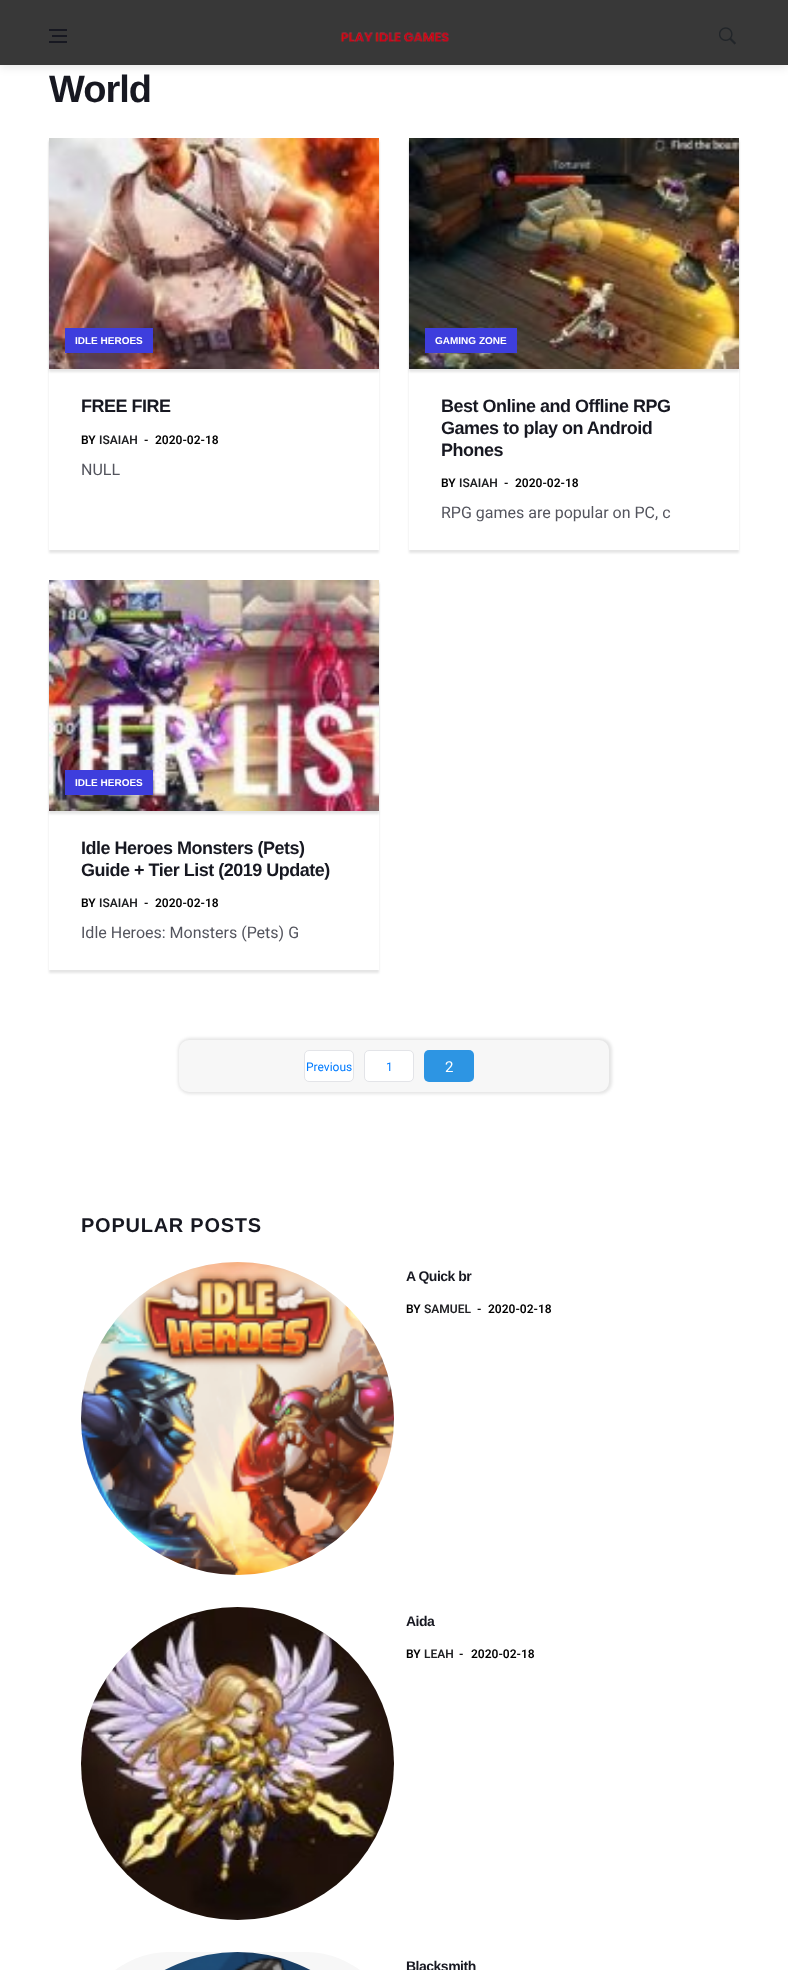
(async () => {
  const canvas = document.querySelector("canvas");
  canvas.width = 788;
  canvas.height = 1970;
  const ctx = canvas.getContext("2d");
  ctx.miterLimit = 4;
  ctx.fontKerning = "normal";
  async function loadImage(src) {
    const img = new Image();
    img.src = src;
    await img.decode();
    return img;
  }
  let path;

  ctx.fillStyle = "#ffffff";
  ctx.fillRect(0, 0, 788, 1970);
  ctx.fillStyle = "rgba(0, 0, 0, 0.1)";
  ctx.filter = "blur(5px)";
  ctx.beginPath();
  ctx.rect(0, 2, 788, 65);
  ctx.fill();
  ctx.filter = "none";
  for (const [x, y, w, h, color] of [
    [0, 0, 788, 65, "#383838"],
    [52, 35, 15, 2, "#171821"],
    [49, 29, 18, 2, "#171821"],
    [49, 41, 18, 2, "#171821"],
  ]) {
    ctx.fillStyle = color;
    ctx.fillRect(x, y, w, h);
  }
  ctx.drawImage(await loadImage("img/1.png"), 340, 32, 110, 10);
  ctx.drawImage(await loadImage("img/2.png"), 719, 27, 17, 18);
  ctx.save();
  path = new Path2D("M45 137H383V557H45ZM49 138H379V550H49Z");
  ctx.clip(path, "evenodd");
  ctx.fillStyle = "rgba(0, 0, 0, 0.1)";
  ctx.filter = "blur(1px)";
  ctx.beginPath();
  ctx.rect(49, 141, 330, 412);
  ctx.fill();
  ctx.filter = "none";
  ctx.restore();
  ctx.fillStyle = "rgba(0, 0, 0, 0.1)";
  ctx.filter = "blur(1px)";
  ctx.beginPath();
  ctx.rect(49, 141, 330, 231);
  ctx.fill();
  ctx.filter = "none";
  ctx.drawImage(await loadImage("img/3.png"), 49, 138, 330, 231);
  ctx.fillStyle = "#3e3edd";
  ctx.fillRect(65, 328, 88, 25);
  ctx.save();
  path = new Path2D("M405 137H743V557H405ZM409 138H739V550H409Z");
  ctx.clip(path, "evenodd");
  ctx.fillStyle = "rgba(0, 0, 0, 0.1)";
  ctx.filter = "blur(1px)";
  ctx.beginPath();
  ctx.rect(409, 141, 330, 412);
  ctx.fill();
  ctx.filter = "none";
  ctx.restore();
  ctx.fillStyle = "rgba(0, 0, 0, 0.1)";
  ctx.filter = "blur(1px)";
  ctx.beginPath();
  ctx.rect(409, 141, 330, 231);
  ctx.fill();
  ctx.filter = "none";
  ctx.drawImage(await loadImage("img/4.png"), 409, 138, 330, 231);
  ctx.fillStyle = "#3e3edd";
  ctx.fillRect(425, 328, 92, 25);
  ctx.save();
  path = new Path2D("M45 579H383V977H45ZM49 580H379V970H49Z");
  ctx.clip(path, "evenodd");
  ctx.fillStyle = "rgba(0, 0, 0, 0.1)";
  ctx.filter = "blur(1px)";
  ctx.beginPath();
  ctx.rect(49, 583, 330, 390);
  ctx.fill();
  ctx.filter = "none";
  ctx.restore();
  ctx.fillStyle = "rgba(0, 0, 0, 0.1)";
  ctx.filter = "blur(1px)";
  ctx.beginPath();
  ctx.rect(49, 583, 330, 231);
  ctx.fill();
  ctx.filter = "none";
  ctx.drawImage(await loadImage("img/5.png"), 49, 580, 330, 231);
  ctx.fillStyle = "#3e3edd";
  ctx.fillRect(65, 770, 88, 25);
  ctx.fillStyle = "rgba(0, 0, 0, 0.1)";
  ctx.filter = "blur(1.5px)";
  ctx.beginPath();
  ctx.roundRect(178, 1038, 434, 56, 12);
  ctx.fill();
  ctx.filter = "none";
  ctx.fillStyle = "#f7f7f7";
  ctx.beginPath();
  ctx.roundRect(179, 1040, 430, 52, 10);
  ctx.fill();
  ctx.fillStyle = "#ffffff";
  ctx.beginPath();
  ctx.roundRect(304.5, 1050.5, 49, 31, 4.5);
  ctx.fill();
  ctx.strokeStyle = "#e3e4e8";
  ctx.stroke();
  ctx.beginPath();
  ctx.roundRect(364.5, 1050.5, 49, 31, 4.5);
  ctx.fill();
  ctx.stroke();
  ctx.fillStyle = "#2d95e3";
  ctx.beginPath();
  ctx.roundRect(424, 1050, 50, 32, 5);
  ctx.fill();
  ctx.fillStyle = "#f7f7f7";
  ctx.beginPath();
  ctx.arc(237.5, 1418.5, 156.5, 0, Math.PI * 2);
  ctx.fill();
  ctx.drawImage(await loadImage("img/6.png"), 81, 1262, 313, 313);
  ctx.beginPath();
  ctx.arc(237.5, 1763.5, 156.5, 0, Math.PI * 2);
  ctx.fill();
  ctx.drawImage(await loadImage("img/7.png"), 81, 1607, 313, 313);
  ctx.beginPath();
  ctx.roundRect(81, 1952, 313, 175, 156.5);
  ctx.fill();
  ctx.drawImage(await loadImage("img/8.png"), 164, 1952, 147, 18);
  ctx.letterSpacing = "-1px";
  ctx.font = "bold 38px Liberation Sans";
  ctx.fillStyle = "#171821";
  ctx.fillText("World", 49, 102);
  ctx.letterSpacing = "0px";
  ctx.font = "bold 10px Liberation Sans";
  ctx.fillStyle = "#ffffff";
  ctx.fillText("IDLE HEROES", 75, 344);
  ctx.letterSpacing = "-0.5px";
  ctx.font = "bold 18px Liberation Sans";
  ctx.fillStyle = "#171821";
  ctx.fillText("FREE FIRE", 81, 412);
  ctx.letterSpacing = "0px";
  ctx.font = "600 12px Roboto";
  ctx.fillStyle = "#000000";
  ctx.fillText("BY", 81, 444);
  ctx.fillStyle = "#202124";
  ctx.fillText("ISAIAH", 99, 444);
  ctx.fillStyle = "#000000";
  ctx.fillText("-", 144, 444);
  ctx.fillText("2020-02-18", 155, 444);
  ctx.font = "16px Roboto";
  ctx.fillStyle = "#54555e";
  ctx.fillText("NULL", 81, 475);
  ctx.font = "bold 10px Liberation Sans";
  ctx.fillStyle = "#ffffff";
  ctx.fillText("GAMING ZONE", 435, 344);
  ctx.letterSpacing = "-0.5px";
  ctx.font = "bold 18px Liberation Sans";
  ctx.fillStyle = "#171821";
  for (const [text, x, y] of [
    ["Best Online and Offline RPG", 441, 412],
    ["Games to play on Android", 441, 434],
    ["Phones", 441, 456],
  ]) {
    ctx.fillText(text, x, y);
  }
  ctx.letterSpacing = "0px";
  ctx.font = "600 12px Roboto";
  ctx.fillStyle = "#000000";
  ctx.fillText("BY", 441, 487);
  ctx.fillStyle = "#202124";
  ctx.fillText("ISAIAH", 459, 487);
  ctx.fillStyle = "#000000";
  ctx.fillText("-", 504, 487);
  ctx.fillText("2020-02-18", 515, 487);
  ctx.font = "16px Roboto";
  ctx.fillStyle = "#54555e";
  ctx.fillText("RPG games are popular on PC, c", 441, 518);
  ctx.font = "bold 10px Liberation Sans";
  ctx.fillStyle = "#ffffff";
  ctx.fillText("IDLE HEROES", 75, 786);
  ctx.letterSpacing = "-0.5px";
  ctx.font = "bold 18px Liberation Sans";
  ctx.fillStyle = "#171821";
  ctx.fillText("Idle Heroes Monsters (Pets)", 81, 854);
  ctx.fillText("Guide + Tier List (2019 Update)", 81, 876);
  ctx.letterSpacing = "0px";
  ctx.font = "600 12px Roboto";
  ctx.fillStyle = "#000000";
  ctx.fillText("BY", 81, 907);
  ctx.fillStyle = "#202124";
  ctx.fillText("ISAIAH", 99, 907);
  ctx.fillStyle = "#000000";
  ctx.fillText("-", 144, 907);
  ctx.fillText("2020-02-18", 155, 907);
  ctx.font = "16px Roboto";
  ctx.fillStyle = "#54555e";
  ctx.fillText("Idle Heroes: Monsters (Pets) G", 81, 938);
  ctx.font = "12px Roboto";
  ctx.fillStyle = "#007bff";
  ctx.fillText("Previous", 306, 1071);
  ctx.fillText("1", 386, 1071);
  ctx.font = "15px Roboto";
  ctx.fillStyle = "#ffffff";
  ctx.fillText("2", 445, 1072);
  ctx.letterSpacing = "0.75px";
  ctx.font = "bold 20px Liberation Sans";
  ctx.fillStyle = "#171821";
  ctx.fillText("POPULAR POSTS", 81, 1232);
  ctx.letterSpacing = "-0.5px";
  ctx.font = "bold 14px Liberation Sans";
  ctx.fillText("A Quick br", 406, 1281);
  ctx.letterSpacing = "0px";
  ctx.font = "600 12px Roboto";
  ctx.fillStyle = "#000000";
  ctx.fillText("BY", 406, 1313);
  ctx.fillStyle = "#202124";
  ctx.fillText("SAMUEL", 424, 1313);
  ctx.fillStyle = "#000000";
  ctx.fillText("-", 477, 1313);
  ctx.fillText("2020-02-18", 488, 1313);
  ctx.letterSpacing = "-0.5px";
  ctx.font = "bold 14px Liberation Sans";
  ctx.fillStyle = "#171821";
  ctx.fillText("Aida", 406, 1626);
  ctx.letterSpacing = "0px";
  ctx.font = "600 12px Roboto";
  ctx.fillStyle = "#000000";
  ctx.fillText("BY", 406, 1658);
  ctx.fillStyle = "#202124";
  ctx.fillText("LEAH", 424, 1658);
  ctx.fillStyle = "#000000";
  ctx.fillText("-", 459, 1658);
  ctx.fillText("2020-02-18", 471, 1658);
  ctx.letterSpacing = "-0.5px";
  ctx.font = "bold 14px Liberation Sans";
  ctx.fillStyle = "#171821";
  ctx.fillText("Blacksmith", 406, 1971);
})();
